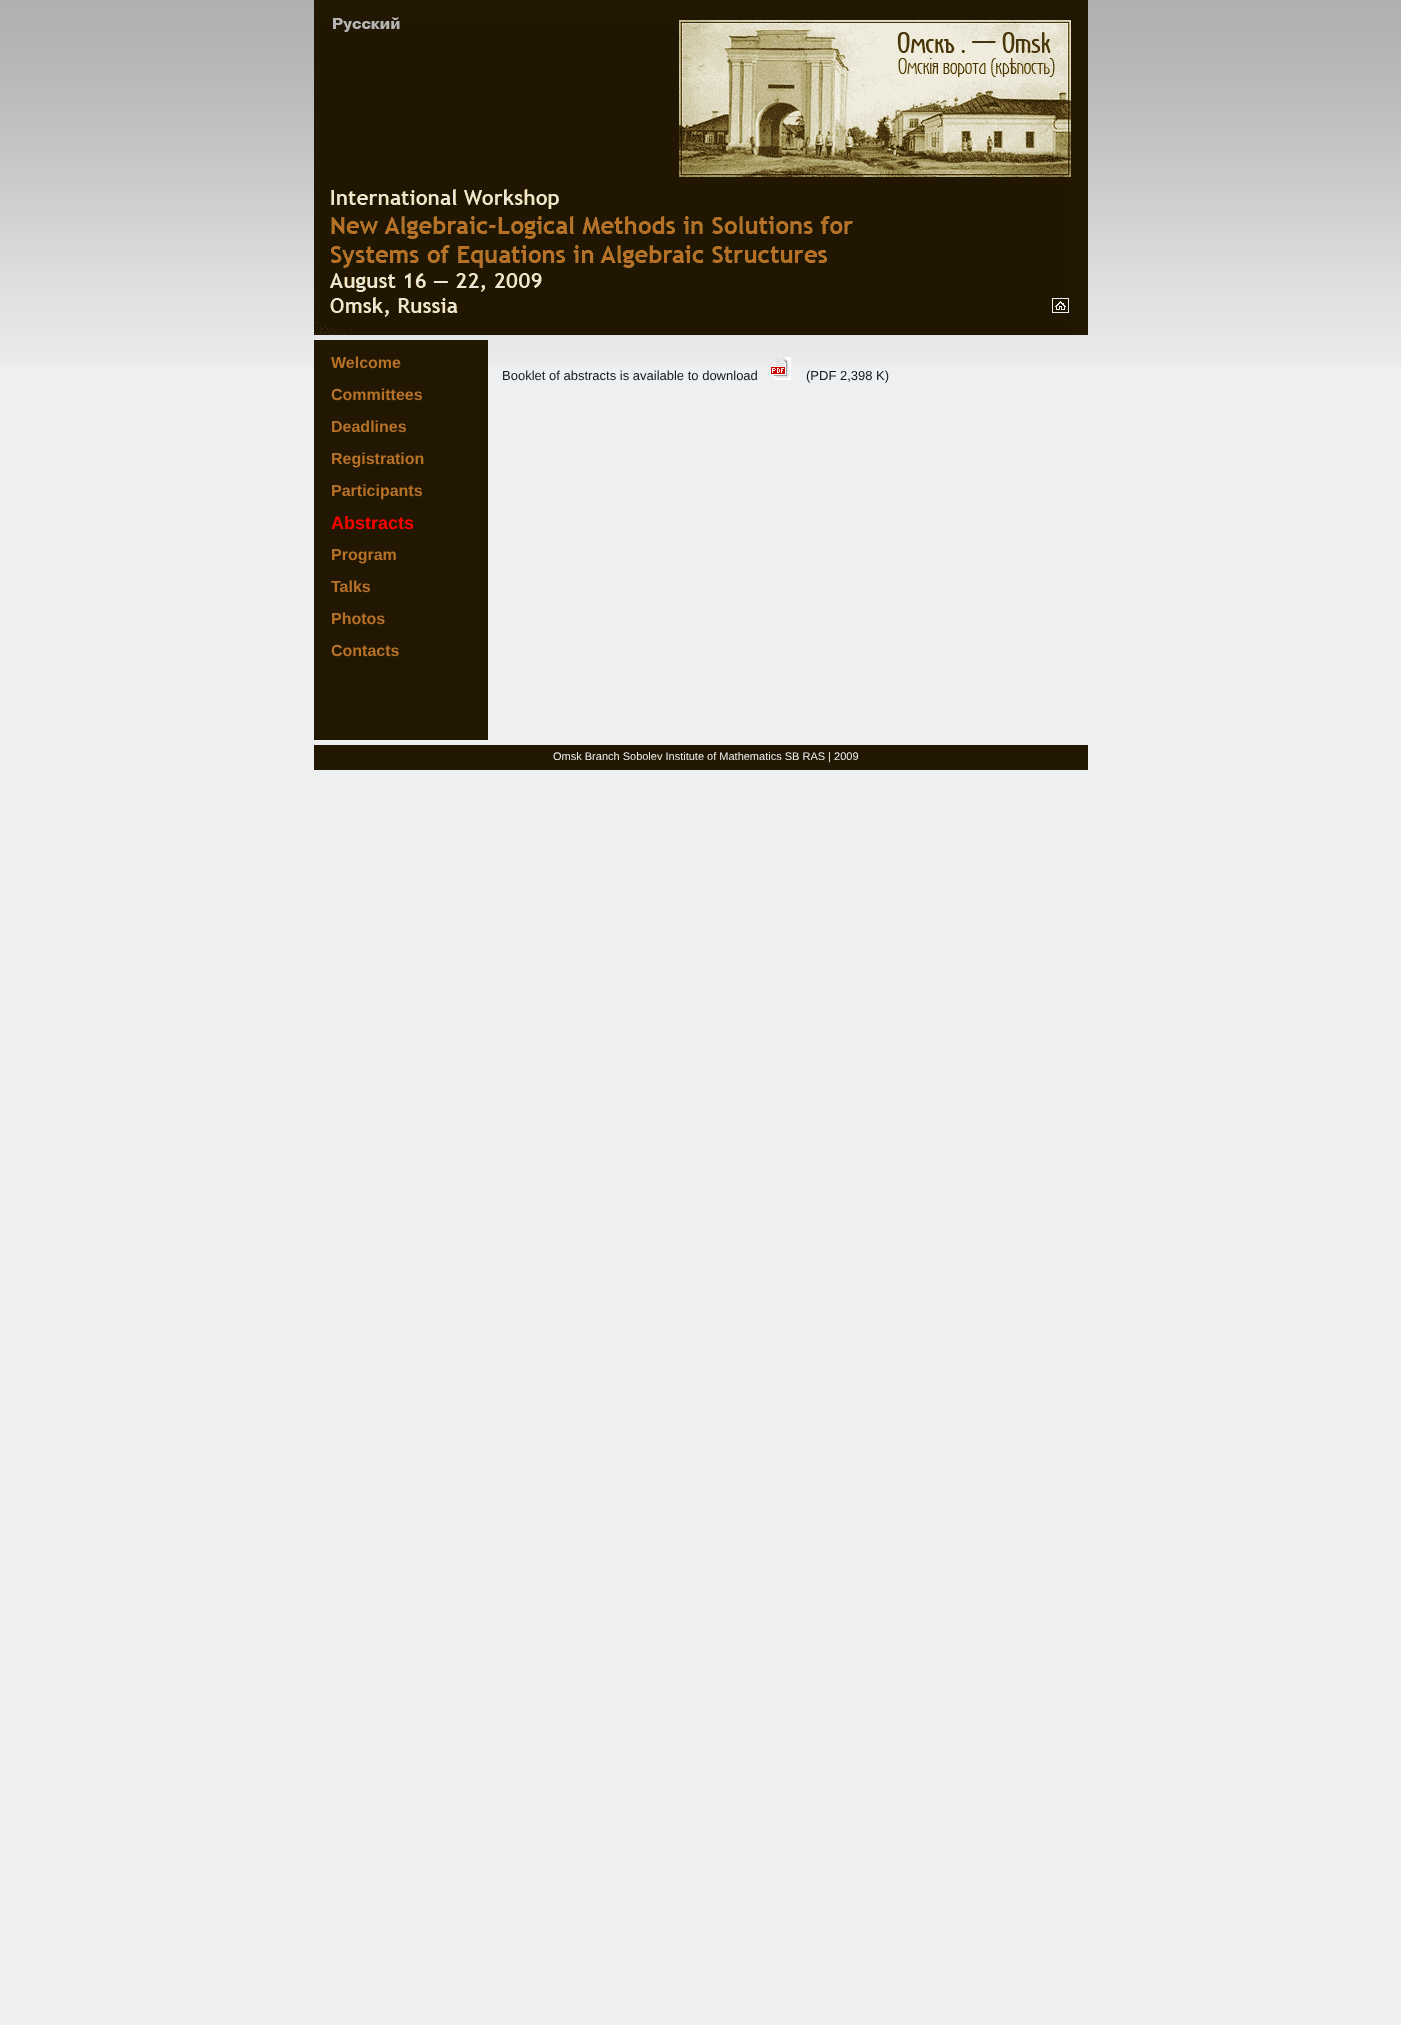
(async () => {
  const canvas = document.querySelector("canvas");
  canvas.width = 1401;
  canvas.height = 2025;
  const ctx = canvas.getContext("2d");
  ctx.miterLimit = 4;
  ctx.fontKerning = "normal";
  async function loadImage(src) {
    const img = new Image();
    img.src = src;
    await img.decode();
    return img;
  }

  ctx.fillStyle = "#eeeff0";
  ctx.fillRect(0, 0, 1401, 2025);
  ctx.drawImage(await loadImage("img/1.png"), 0, 0, 1401, 367);
  ctx.fillStyle = "#211702";
  ctx.fillRect(314, 0, 774, 335);
  ctx.drawImage(await loadImage("img/2.png"), 314, 20, 757, 315);
  ctx.drawImage(await loadImage("img/3.png"), 333, 17, 67, 15);
  ctx.drawImage(await loadImage("img/4.png"), 1052, 298, 17, 15);
  ctx.fillRect(314, 340, 174, 400);
  ctx.drawImage(await loadImage("img/5.png"), 771, 357, 20, 23);
  ctx.fillRect(314, 745, 774, 25);
  ctx.font = "bold 16px Liberation Sans";
  ctx.fillStyle = "#b87227";
  for (const [text, x, y] of [
    ["Welcome", 331, 368],
    ["Committees", 331, 400],
    ["Deadlines", 331, 432],
    ["Registration", 331, 464],
    ["Participants", 331, 496],
  ]) {
    ctx.fillText(text, x, y);
  }
  ctx.font = "bold 18px Liberation Sans";
  ctx.fillStyle = "#fc0301";
  ctx.fillText("Abstracts", 331, 529);
  ctx.font = "bold 16px Liberation Sans";
  ctx.fillStyle = "#b87227";
  for (const [text, x, y] of [
    ["Program", 331, 560],
    ["Talks", 331, 592],
    ["Photos", 331, 624],
    ["Contacts", 331, 656],
  ]) {
    ctx.fillText(text, x, y);
  }
  ctx.font = "13px Liberation Sans";
  ctx.fillStyle = "#101820";
  ctx.fillText("Booklet of abstracts is available to download", 502, 380);
  ctx.fillText("(PDF 2,398 K)", 806, 380);
  ctx.font = "11px Liberation Sans";
  ctx.fillStyle = "#eeeff0";
  ctx.fillText("Omsk Branch Sobolev Institute of Mathematics SB RAS | 2009", 553, 760);
})();
